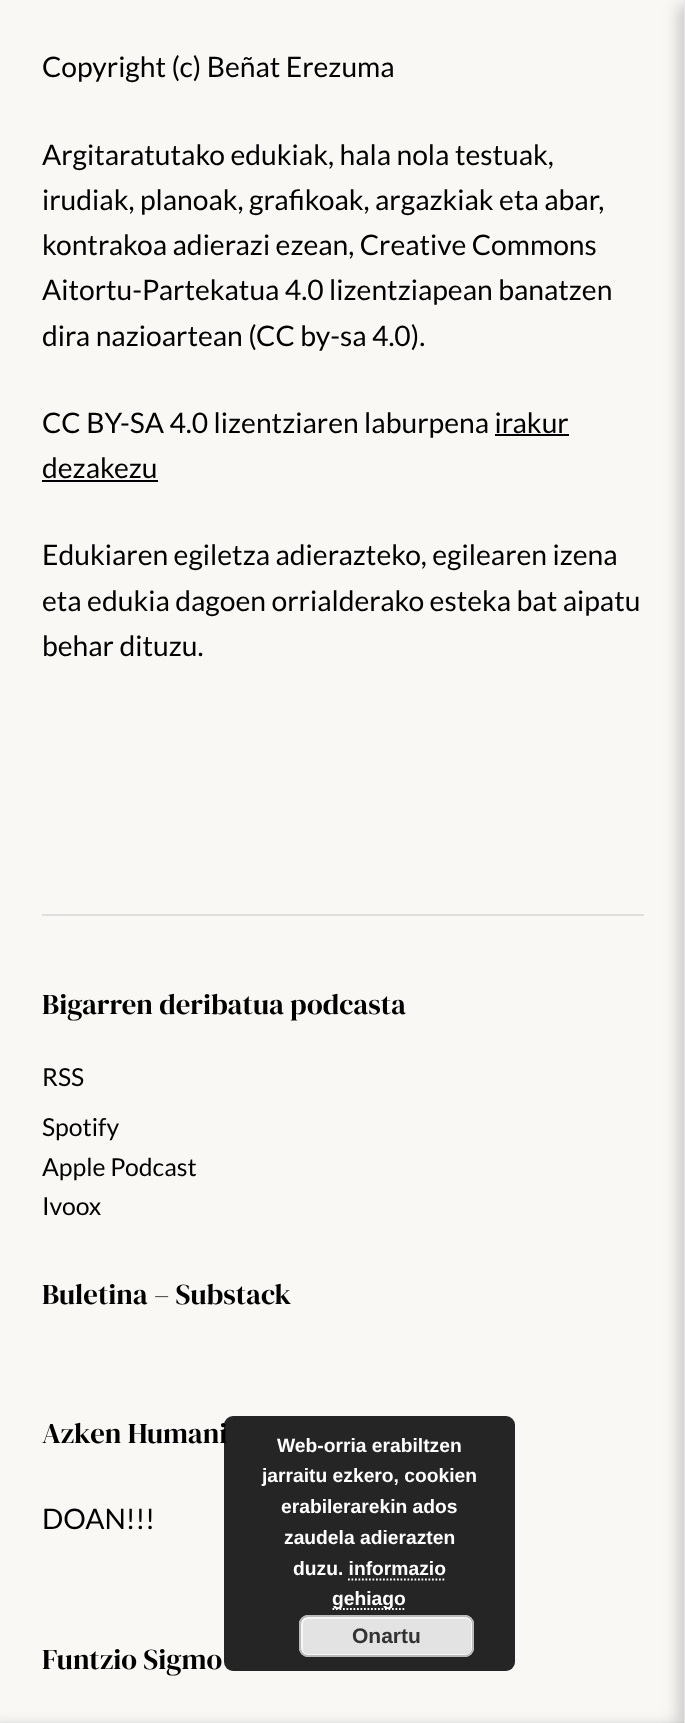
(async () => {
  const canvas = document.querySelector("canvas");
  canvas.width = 685;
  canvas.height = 1723;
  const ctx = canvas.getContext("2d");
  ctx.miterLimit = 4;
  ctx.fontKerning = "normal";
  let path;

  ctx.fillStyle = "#f9f8f5";
  ctx.fillRect(0, 0, 685, 1723);
  for (const [x, y, w, h, color] of [
    [495, 434, 74, 2, "#000000"],
    [42, 480, 116, 2, "#000000"],
    [42, 914, 602, 2, "#dedede"],
  ]) {
    ctx.fillStyle = color;
    ctx.fillRect(x, y, w, h);
  }
  ctx.fillStyle = "rgba(0, 0, 0, 0.2)";
  ctx.filter = "blur(8px)";
  ctx.beginPath();
  ctx.rect(-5, 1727, 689, 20);
  ctx.fill();
  ctx.filter = "none";
  ctx.fillStyle = "#e6e6e6";
  ctx.fillRect(0, 1722, 685, 1);
  ctx.fillStyle = "rgba(0, 0, 0, 0.2)";
  ctx.filter = "blur(8px)";
  ctx.beginPath();
  ctx.rect(679, 5, 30, 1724);
  ctx.fill();
  ctx.filter = "none";
  ctx.fillStyle = "#e6e6e6";
  ctx.fillRect(684, 0, 1, 1723);
  ctx.font = "28.25px Lato";
  ctx.fillStyle = "#000000";
  for (const [text, x, y] of [
    ["Copyright (c) Beñat Erezuma", 42, 77],
    ["Argitaratutako edukiak, hala nola testuak,", 42, 165],
    ["irudiak, planoak, grafikoak, argazkiak eta abar,", 42, 210],
    ["kontrakoa adierazi ezean, Creative Commons", 42, 255],
    ["Aitortu-Partekatua 4.0 lizentziapean banatzen", 42, 300],
    ["dira nazioartean (CC by-sa 4.0).", 42, 346],
    ["CC BY-SA 4.0 lizentziaren laburpena irakur", 42, 433],
    ["dezakezu", 42, 478],
    ["Edukiaren egiletza adierazteko, egilearen izena", 42, 565],
    ["eta edukia dagoen orrialderako esteka bat aipatu", 42, 611],
    ["behar dituzu.", 42, 656],
  ]) {
    ctx.fillText(text, x, y);
  }
  ctx.font = "28.75px DM Serif Display";
  ctx.fillText("Bigarren deribatua podcasta", 42, 1014);
  ctx.font = "24.75px Lato";
  for (const [text, x, y] of [
    ["RSS", 42, 1086],
    ["Spotify", 42, 1136],
    ["Apple Podcast", 42, 1176],
    ["Ivoox", 42, 1215],
  ]) {
    ctx.fillText(text, x, y);
  }
  ctx.font = "28.75px DM Serif Display";
  ctx.fillText("Buletina – Substack", 42, 1304);
  ctx.fillText("Azken Humani", 42, 1443);
  ctx.font = "28.25px Lato";
  ctx.fillText("DOAN!!!", 42, 1529);
  ctx.font = "28.75px DM Serif Display";
  ctx.fillText("Funtzio Sigmo", 42, 1669);
  ctx.fillStyle = "rgba(0, 0, 0, 0.85)";
  ctx.beginPath();
  ctx.roundRect(224, 1416, 291, 255, 9);
  ctx.fill();
  ctx.font = "bold 19.25px Liberation Sans";
  ctx.fillStyle = "#ffffff";
  for (const [text, x, y] of [
    ["Web-orria erabiltzen", 277, 1452],
    ["jarraitu ezkero, cookien", 262, 1482],
    ["erabilerarekin ados", 281, 1513],
    ["zaudela adierazten", 284, 1544],
    ["duzu. informazio", 293, 1575],
  ]) {
    ctx.fillText(text, x, y);
  }
  path = new Path2D("M348 1579.5H446");
  ctx.strokeStyle = "#ffffff";
  ctx.lineWidth = 1.8;
  ctx.setLineDash([1.75, 1.75]);
  ctx.stroke(path);
  path = new Path2D("M332.5 1609H406");
  ctx.stroke(path);
  ctx.fillText("gehiago", 332, 1605);
  ctx.fillStyle = "#e3e3e3";
  ctx.beginPath();
  ctx.roundRect(299, 1615, 175, 42, 9);
  ctx.fill();
  ctx.beginPath();
  ctx.roundRect(302, 1618, 170, 37, 6);
  ctx.strokeStyle = "#f6f6f6";
  ctx.lineWidth = 2;
  ctx.setLineDash([]);
  ctx.stroke();
  ctx.beginPath();
  ctx.roundRect(300, 1616, 173, 40, 8);
  ctx.strokeStyle = "#bbbbbb";
  ctx.stroke();
  ctx.font = "bold 21px Liberation Sans";
  ctx.fillStyle = "#333333";
  ctx.fillText("Onartu", 352, 1643);
})();
